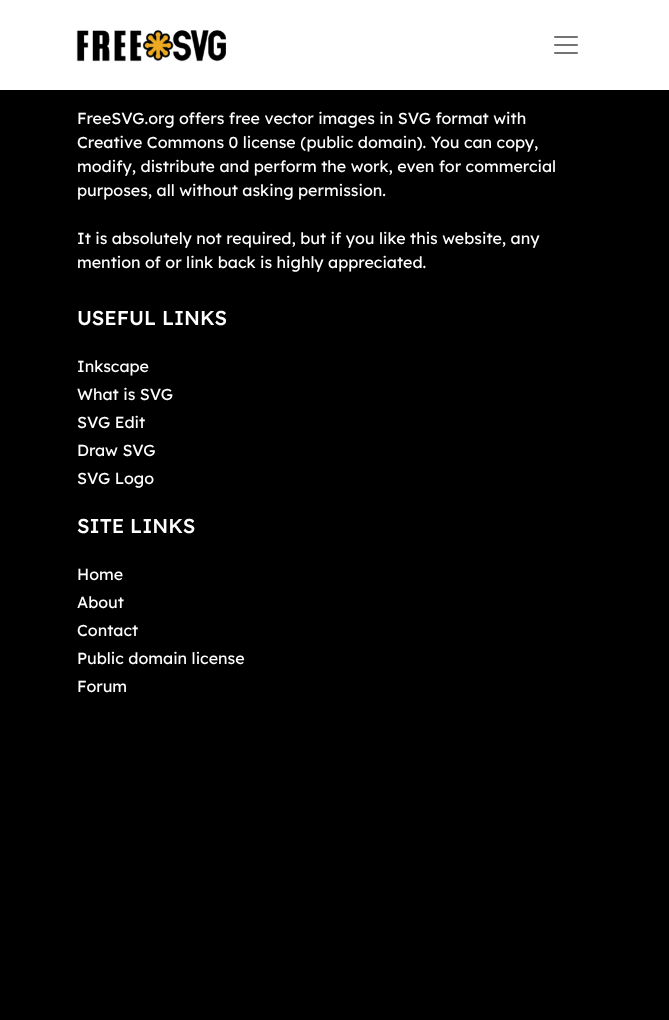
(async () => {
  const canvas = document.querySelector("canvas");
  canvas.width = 669;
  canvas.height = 1020;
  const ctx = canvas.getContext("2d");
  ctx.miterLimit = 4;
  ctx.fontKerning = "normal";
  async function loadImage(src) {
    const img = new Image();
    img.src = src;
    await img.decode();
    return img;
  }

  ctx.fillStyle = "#000000";
  ctx.fillRect(0, 0, 669, 1020);
  ctx.fillStyle = "#ffffff";
  ctx.fillRect(0, 0, 669, 90);
  ctx.drawImage(await loadImage("img/1.png"), 76, 30, 150, 32);
  ctx.drawImage(await loadImage("img/2.png"), 554, 36, 24, 18);
  ctx.font = "16px Lexend";
  for (const [text, x, y] of [
    ["FreeSVG.org offers free vector images in SVG format with", 77, 124],
    ["Creative Commons 0 license (public domain). You can copy,", 77, 148],
    ["modify, distribute and perform the work, even for commercial", 77, 172],
    ["purposes, all without asking permission.", 77, 196],
    ["It is absolutely not required, but if you like this website, any", 77, 244],
    ["mention of or link back is highly appreciated.", 77, 268],
  ]) {
    ctx.fillText(text, x, y);
  }
  ctx.font = "500 20px Lexend";
  ctx.fillText("USEFUL LINKS", 77, 325);
  ctx.font = "16px Lexend";
  for (const [text, x, y] of [
    ["Inkscape", 77, 372],
    ["What is SVG", 77, 400],
    ["SVG Edit", 77, 428],
    ["Draw SVG", 77, 456],
    ["SVG Logo", 77, 484],
  ]) {
    ctx.fillText(text, x, y);
  }
  ctx.font = "500 20px Lexend";
  ctx.fillText("SITE LINKS", 77, 533);
  ctx.font = "16px Lexend";
  for (const [text, x, y] of [
    ["Home", 77, 580],
    ["About", 77, 608],
    ["Contact", 77, 636],
    ["Public domain license", 77, 664],
    ["Forum", 77, 692],
  ]) {
    ctx.fillText(text, x, y);
  }
})();
